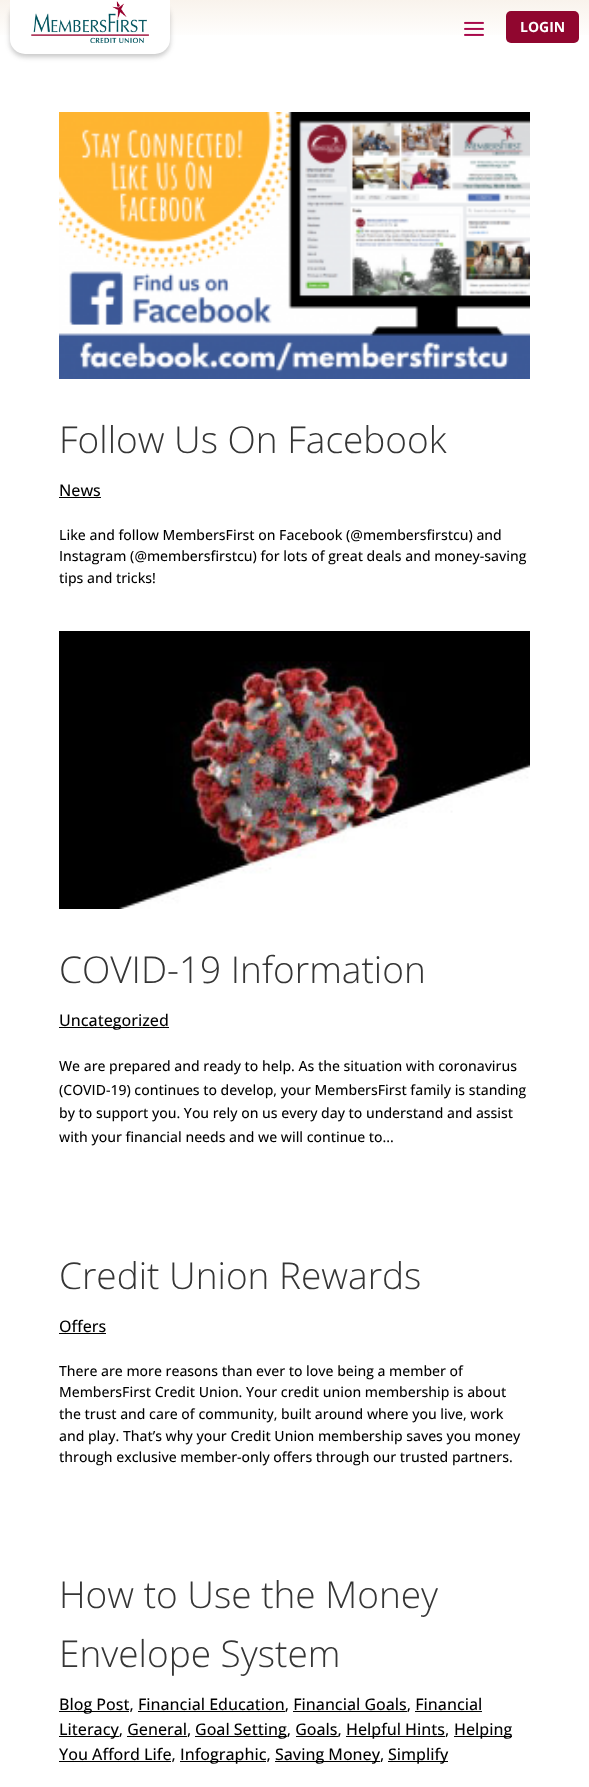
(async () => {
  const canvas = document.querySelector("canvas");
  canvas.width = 589;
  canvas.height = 1787;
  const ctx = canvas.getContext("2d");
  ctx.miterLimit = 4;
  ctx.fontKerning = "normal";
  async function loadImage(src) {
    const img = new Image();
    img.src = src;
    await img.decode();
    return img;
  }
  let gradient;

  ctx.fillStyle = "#ffffff";
  ctx.fillRect(0, 0, 589, 1787);
  gradient = ctx.createLinearGradient(295, 0, 295, 80);
  gradient.addColorStop(0, "#f9f3ec");
  gradient.addColorStop(0.5, "#ffffff");
  gradient.addColorStop(1, "#ffffff");
  ctx.fillStyle = gradient;
  ctx.fillRect(0, 0, 589, 35);
  ctx.fillStyle = "rgba(51, 51, 51, 0.27)";
  ctx.filter = "blur(2.5px)";
  ctx.beginPath();
  ctx.roundRect(10, 3, 160, 54, 15);
  ctx.fill();
  ctx.filter = "none";
  ctx.fillStyle = "#ffffff";
  ctx.beginPath();
  ctx.roundRect(10, 0, 160, 54, [0, 0, 15, 15]);
  ctx.fill();
  ctx.drawImage(await loadImage("img/1.png"), 31, 1, 118, 42);
  ctx.drawImage(await loadImage("img/2.png"), 464, 21, 20, 15);
  ctx.fillStyle = "#90062f";
  ctx.beginPath();
  ctx.roundRect(506, 11, 73, 32, 5);
  ctx.fill();
  ctx.drawImage(await loadImage("img/3.png"), 59, 112, 471, 267);
  ctx.fillStyle = "#000000";
  ctx.fillRect(59, 497, 42, 1);
  ctx.drawImage(await loadImage("img/4.png"), 59, 631, 471, 278);
  for (const [x, y, w, h, color] of [
    [59, 1027, 110, 1, "#000000"],
    [59, 1333, 47, 1, "#000000"],
    [59, 1711, 70, 1, "#000000"],
    [138, 1711, 147, 1, "#000000"],
    [293, 1711, 114, 1, "#000000"],
    [415, 1711, 67, 1, "#000000"],
    [59, 1736, 60, 1, "#000000"],
    [195, 1736, 92, 1, "#000000"],
    [346, 1736, 99, 1, "#000000"],
    [454, 1736, 58, 1, "#000000"],
    [127, 1736, 60, 1, "#000000"],
    [296, 1736, 42, 1, "#000000"],
    [59, 1761, 112, 1, "#000000"],
    [180, 1761, 86, 1, "#000000"],
    [275, 1761, 105, 1, "#000000"],
    [388, 1761, 60, 1, "#000000"],
  ]) {
    ctx.fillStyle = color;
    ctx.fillRect(x, y, w, h);
  }
  ctx.font = "bold 14px Open Sans";
  ctx.fillStyle = "#ffffff";
  ctx.fillText("LOGIN", 520, 32);
  ctx.font = "300 37px Open Sans";
  ctx.fillStyle = "#353535";
  ctx.fillText("Follow Us On Facebook", 59, 453);
  ctx.font = "500 16px Open Sans";
  ctx.fillStyle = "#000000";
  ctx.fillText("News", 59, 496);
  ctx.font = "500 14px Open Sans";
  for (const [text, x, y] of [
    ["Like and follow MembersFirst on Facebook (@membersfirstcu) and", 59, 540],
    ["Instagram (@membersfirstcu) for lots of great deals and money-saving", 59, 561],
    ["tips and tricks!", 59, 583],
  ]) {
    ctx.fillText(text, x, y);
  }
  ctx.font = "300 37px Open Sans";
  ctx.fillStyle = "#353535";
  ctx.fillText("COVID-19 Information", 59, 983);
  ctx.font = "500 16px Open Sans";
  ctx.fillStyle = "#000000";
  ctx.fillText("Uncategorized", 59, 1026);
  ctx.font = "500 14px Open Sans";
  for (const [text, x, y] of [
    ["We are prepared and ready to help. As the situation with coronavirus", 59, 1071],
    ["(COVID-19) continues to develop, your MembersFirst family is standing", 59, 1095],
    ["by to support you. You rely on us every day to understand and assist", 59, 1118],
    ["with your financial needs and we will continue to...", 59, 1142],
  ]) {
    ctx.fillText(text, x, y);
  }
  ctx.font = "300 37px Open Sans";
  ctx.fillStyle = "#353535";
  ctx.fillText("Credit Union Rewards", 59, 1289);
  ctx.font = "500 16px Open Sans";
  ctx.fillStyle = "#000000";
  ctx.fillText("Offers", 59, 1332);
  ctx.font = "500 14px Open Sans";
  for (const [text, x, y] of [
    ["There are more reasons than ever to love being a member of", 59, 1376],
    ["MembersFirst Credit Union. Your credit union membership is about", 59, 1397],
    ["the trust and care of community, built around where you live, work", 59, 1419],
    ["and play. That’s why your Credit Union membership saves you money", 59, 1441],
    ["through exclusive member-only offers through our trusted partners.", 59, 1462],
  ]) {
    ctx.fillText(text, x, y);
  }
  ctx.font = "300 37px Open Sans";
  ctx.fillStyle = "#353535";
  ctx.fillText("How to Use the Money", 59, 1608);
  ctx.fillText("Envelope System", 59, 1667);
  ctx.font = "500 16px Open Sans";
  ctx.fillStyle = "#000000";
  for (const [text, x, y] of [
    ["Blog Post, Financial Education, Financial Goals, Financial", 59, 1710],
    ["Literacy, General,", 59, 1735],
    ["Goal Setting, Goals,", 195, 1735],
    ["Helpful Hints,", 346, 1735],
    ["Helping", 454, 1735],
    ["You Afford Life,", 59, 1760],
    ["Infographic,", 180, 1760],
    ["Saving Money,", 275, 1760],
    ["Simplify", 388, 1760],
  ]) {
    ctx.fillText(text, x, y);
  }
})();
